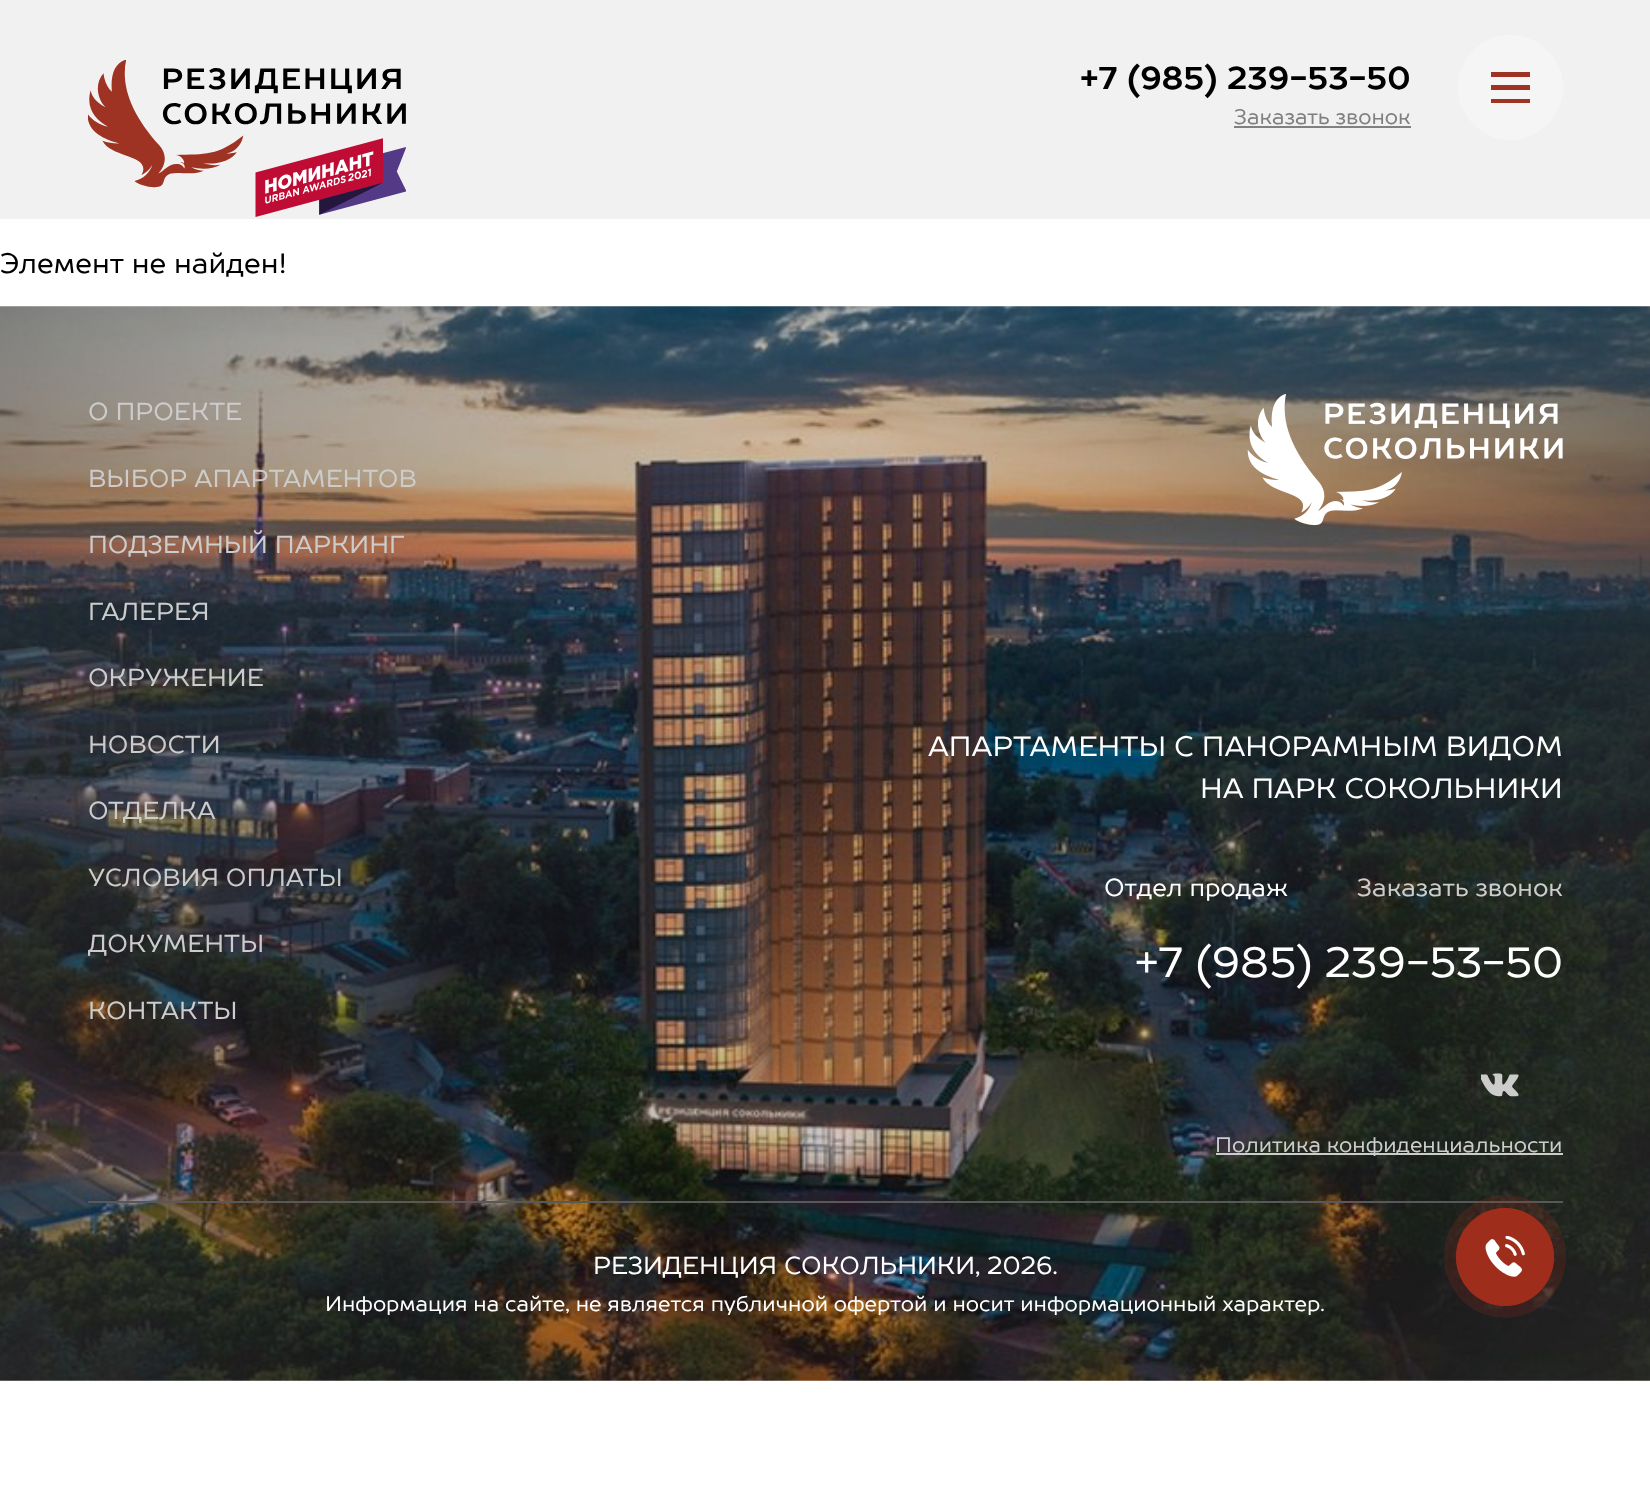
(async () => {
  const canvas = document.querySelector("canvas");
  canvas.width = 1650;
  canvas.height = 1488;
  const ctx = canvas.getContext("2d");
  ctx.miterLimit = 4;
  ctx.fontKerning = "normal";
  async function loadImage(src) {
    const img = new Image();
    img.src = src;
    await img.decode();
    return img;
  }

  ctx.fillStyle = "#ffffff";
  ctx.fillRect(0, 0, 1650, 1488);
  ctx.fillStyle = "#f1f1f1";
  ctx.fillRect(0, 0, 1650, 219);
  ctx.drawImage(await loadImage("img/1.png"), 88, 60, 318, 157);
  ctx.fillStyle = "#808080";
  ctx.fillRect(1234, 126, 177, 2);
  ctx.fillStyle = "#f5f5f5";
  ctx.beginPath();
  ctx.arc(1510.5, 87.5, 52.5, 0, Math.PI * 2);
  ctx.fill();
  for (const [x, y, w, h, color] of [
    [1491, 85, 39, 5, "#9e3223"],
    [1491, 72, 39, 5, "#9e3223"],
    [1491, 99, 39, 4, "#9e3223"],
  ]) {
    ctx.fillStyle = color;
    ctx.fillRect(x, y, w, h);
  }
  ctx.drawImage(await loadImage("img/2.png"), 0, 306, 1650, 1075);
  ctx.drawImage(await loadImage("img/3.png"), 1247, 394, 316, 132);
  ctx.drawImage(await loadImage("img/4.png"), 1481, 1073, 38, 24);
  ctx.fillStyle = "#cccccc";
  ctx.fillRect(1216, 1153, 347, 2);
  ctx.fillStyle = "#585858";
  ctx.fillRect(88, 1201, 1475, 2);
  ctx.fillStyle = "rgba(159, 45, 28, 0.2)";
  ctx.beginPath();
  ctx.roundRect(1444, 1195, 122, 123, 61);
  ctx.fill();
  ctx.beginPath();
  ctx.arc(1505, 1257, 48.5, 0, Math.PI * 2);
  ctx.strokeStyle = "#9f2d1c";
  ctx.stroke();
  ctx.fillStyle = "#9f2d1c";
  ctx.beginPath();
  ctx.arc(1505, 1257, 49, 0, Math.PI * 2);
  ctx.fill();
  ctx.drawImage(await loadImage("img/5.png"), 1485, 1236, 40, 41);
  ctx.font = "bold 31.5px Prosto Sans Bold";
  ctx.fillStyle = "#000000";
  ctx.fillText("+7 (985) 239-53-50", 1080, 89);
  ctx.font = "21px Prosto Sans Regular";
  ctx.fillStyle = "#808080";
  ctx.fillText("Заказать звонок", 1234, 124);
  ctx.font = "28px Prosto Sans Regular";
  ctx.fillStyle = "#000000";
  ctx.fillText("Элемент не найден!", 0, 273);
  ctx.font = "24.5px Prosto Sans Regular";
  ctx.fillStyle = "#cccccc";
  for (const [text, x, y] of [
    ["О ПРОЕКТЕ", 88, 420],
    ["ВЫБОР АПАРТАМЕНТОВ", 88, 487],
    ["ПОДЗЕМНЫЙ ПАРКИНГ", 88, 553],
    ["ГАЛЕРЕЯ", 88, 620],
    ["ОКРУЖЕНИЕ", 88, 686],
    ["НОВОСТИ", 88, 753],
    ["ОТДЕЛКА", 88, 819],
    ["УСЛОВИЯ ОПЛАТЫ", 88, 886],
    ["ДОКУМЕНТЫ", 88, 952],
    ["КОНТАКТЫ", 88, 1019],
  ]) {
    ctx.fillText(text, x, y);
  }
  ctx.font = "28px Prosto Sans Regular";
  ctx.fillStyle = "#ffffff";
  ctx.fillText("АПАРТАМЕНТЫ С ПАНОРАМНЫМ ВИДОМ", 928, 756);
  ctx.fillText("НА ПАРК СОКОЛЬНИКИ", 1200, 798);
  ctx.font = "24.5px Prosto Sans Regular";
  ctx.fillText("Отдел продаж", 1104, 896);
  ctx.fillStyle = "#cccccc";
  ctx.fillText("Заказать звонок", 1357, 896);
  ctx.font = "42px Prosto Sans Regular";
  ctx.fillStyle = "#ffffff";
  ctx.fillText("+7 (985) 239-53-50", 1135, 977);
  ctx.font = "21px Prosto Sans Regular";
  ctx.fillStyle = "#cccccc";
  ctx.fillText("Политика конфиденциальности", 1215, 1152);
  ctx.font = "24.5px Prosto Sans Regular";
  ctx.fillStyle = "#ffffff";
  ctx.fillText("РЕЗИДЕНЦИЯ СОКОЛЬНИКИ, 2026.", 593, 1274);
  ctx.font = "21px Prosto Sans Regular";
  ctx.fillText("Информация на сайте, не является публичной офертой и носит информационный характер.", 325, 1311);
})();
